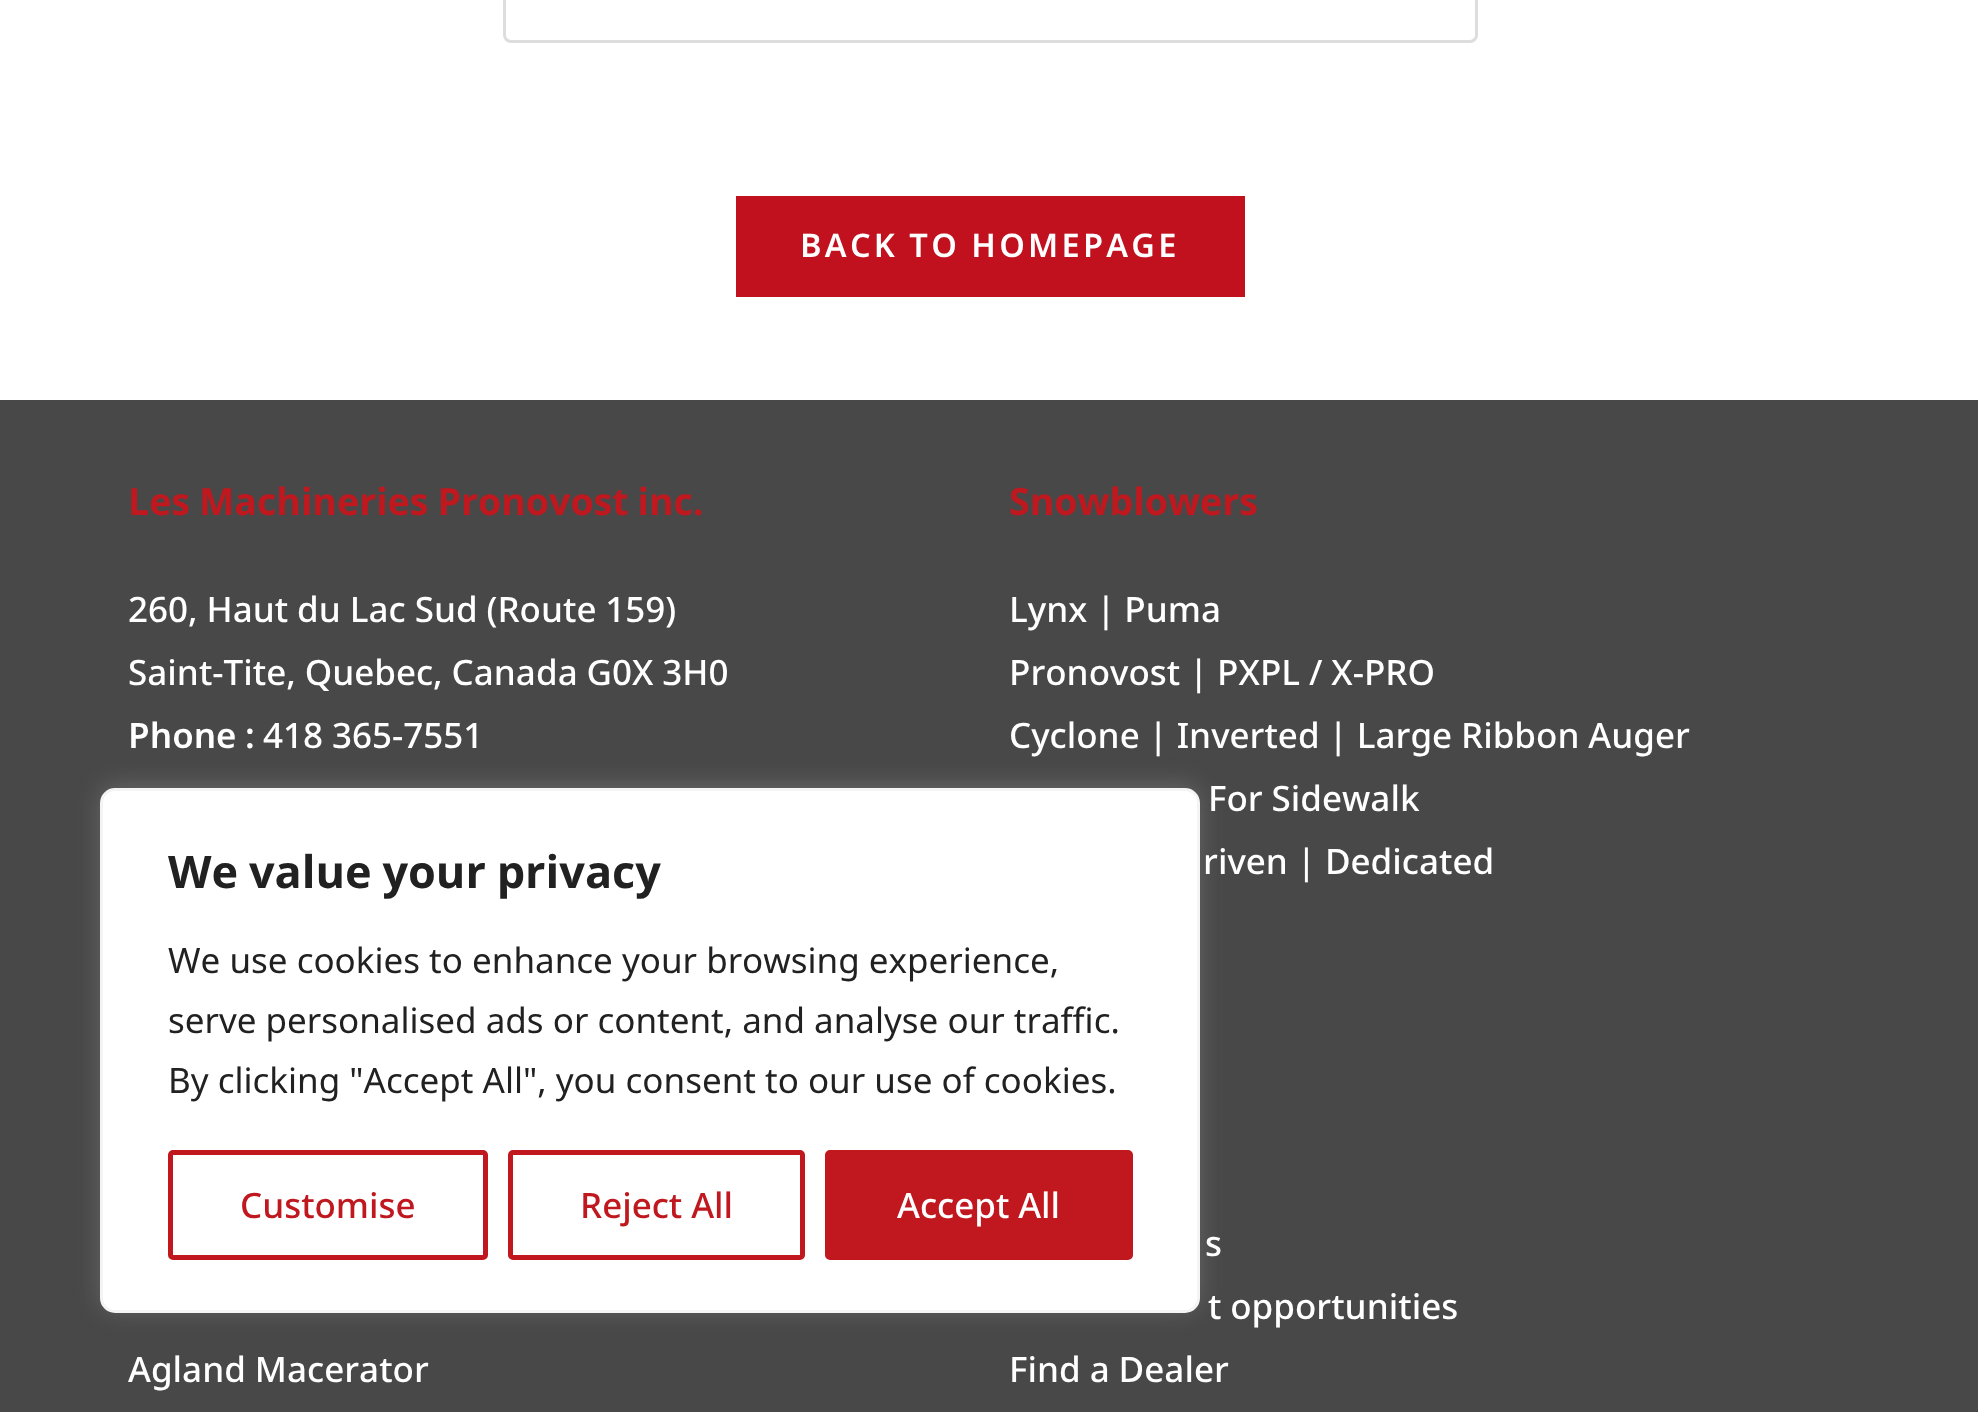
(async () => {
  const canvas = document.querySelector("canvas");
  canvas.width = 1978;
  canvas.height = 1412;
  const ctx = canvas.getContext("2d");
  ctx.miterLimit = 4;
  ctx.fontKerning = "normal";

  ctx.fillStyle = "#ffffff";
  ctx.fillRect(0, 0, 1978, 1412);
  ctx.beginPath();
  ctx.roundRect(504.5, -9.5, 972, 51, 6.5);
  ctx.strokeStyle = "#dddddd";
  ctx.lineWidth = 3;
  ctx.stroke();
  ctx.fillStyle = "#c1101e";
  ctx.fillRect(736, 196, 509, 101);
  ctx.fillStyle = "#494848";
  ctx.fillRect(0, 400, 1978, 1012);
  ctx.fillStyle = "rgba(172, 171, 171, 0.3)";
  ctx.filter = "blur(12.5px)";
  ctx.beginPath();
  ctx.roundRect(100, 785, 1100, 525, 15);
  ctx.fill();
  ctx.filter = "none";
  ctx.fillStyle = "#ffffff";
  ctx.beginPath();
  ctx.roundRect(101.5, 789.5, 1097, 522, 13.5);
  ctx.fill();
  ctx.strokeStyle = "#f4f4f4";
  ctx.stroke();
  ctx.beginPath();
  ctx.roundRect(170.5, 1152.5, 315, 105, 2.5);
  ctx.strokeStyle = "#c1171f";
  ctx.lineWidth = 5;
  ctx.stroke();
  ctx.beginPath();
  ctx.roundRect(510.5, 1152.5, 292, 105, 2.5);
  ctx.stroke();
  ctx.fillStyle = "#c1171f";
  ctx.beginPath();
  ctx.roundRect(827.5, 1152.5, 303, 105, 2.5);
  ctx.fill();
  ctx.stroke();
  ctx.letterSpacing = "3.25px";
  ctx.font = "600 32.5px Noto Sans Bamum";
  ctx.fillStyle = "#ffffff";
  ctx.fillText("BACK TO HOMEPAGE", 800, 257);
  ctx.letterSpacing = "0px";
  ctx.font = "bold 37.5px Noto Sans Bamum";
  ctx.fillStyle = "#c0181f";
  ctx.fillText("Les Machineries Pronovost inc.", 128, 515);
  ctx.font = "500 35px Noto Sans Bamum";
  ctx.fillStyle = "#ffffff";
  ctx.fillText("260, Haut du Lac Sud (Route 159)", 128, 622);
  ctx.fillText("Saint-Tite, Quebec, Canada G0X 3H0", 128, 685);
  ctx.font = "600 35px Noto Sans Bamum";
  ctx.fillText("Phone :", 128, 748);
  ctx.font = "500 35px Noto Sans Bamum";
  ctx.fillText("418 365-7551", 263, 748);
  ctx.font = "bold 37.5px Noto Sans Bamum";
  ctx.fillStyle = "#c0181f";
  ctx.fillText("Snowblowers", 1009, 515);
  ctx.font = "500 35px Noto Sans Bamum";
  ctx.fillStyle = "#ffffff";
  for (const [text, x, y] of [
    ["Lynx | Puma", 1009, 622],
    ["Pronovost | PXPL / X-PRO", 1009, 685],
    ["Cyclone | Inverted | Large Ribbon Auger", 1009, 748],
    ["For Sidewalk", 1208, 811],
    ["riven | Dedicated", 1203, 874],
    ["Agland Macerator", 128, 1382],
    ["s", 1205, 1256],
    ["t opportunities", 1208, 1319],
    ["Find a Dealer", 1009, 1382],
  ]) {
    ctx.fillText(text, x, y);
  }
  ctx.font = "bold 45px Noto Sans Bamum";
  ctx.fillStyle = "#212121";
  ctx.fillText("We value your privacy", 168, 888);
  ctx.font = "35px Noto Sans Bamum";
  for (const [text, x, y] of [
    ["We use cookies to enhance your browsing experience,", 168, 973],
    ["serve personalised ads or content, and analyse our traffic.", 168, 1033],
    ["By clicking \"Accept All\", you consent to our use of cookies.", 168, 1093],
  ]) {
    ctx.fillText(text, x, y);
  }
  ctx.font = "500 35px Noto Sans Bamum";
  ctx.fillStyle = "#c0181f";
  ctx.fillText("Customise", 240, 1218);
  ctx.fillText("Reject All", 580, 1218);
  ctx.fillStyle = "#ffffff";
  ctx.fillText("Accept All", 897, 1218);
})();
